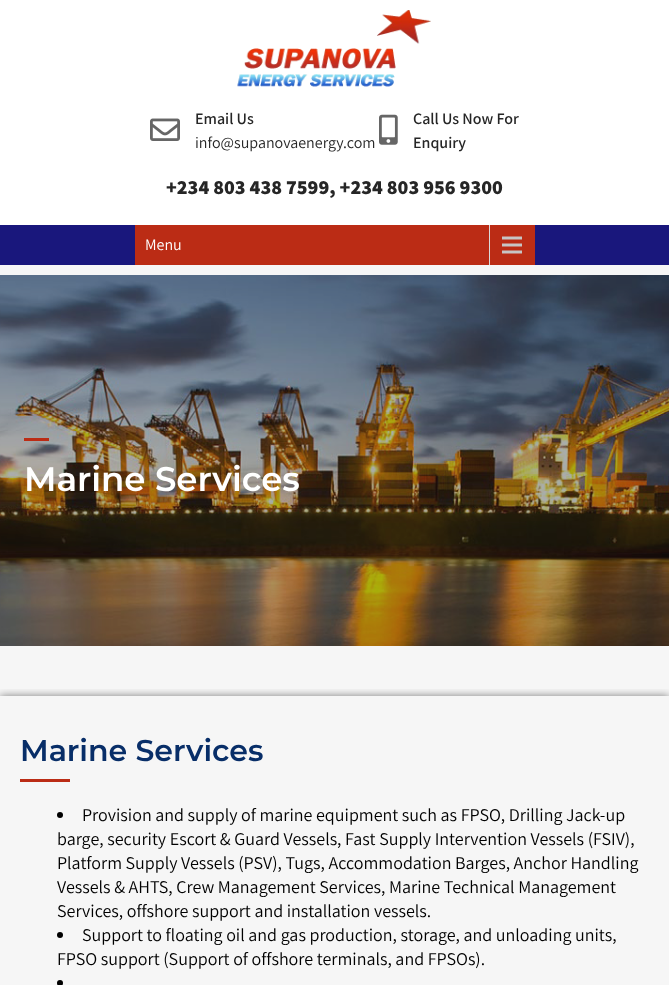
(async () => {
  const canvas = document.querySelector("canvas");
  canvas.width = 669;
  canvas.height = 985;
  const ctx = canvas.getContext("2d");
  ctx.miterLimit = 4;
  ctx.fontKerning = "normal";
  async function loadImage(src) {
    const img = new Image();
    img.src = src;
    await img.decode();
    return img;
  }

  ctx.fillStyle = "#f6f6f6";
  ctx.fillRect(0, 0, 669, 985);
  ctx.fillStyle = "#ffffff";
  ctx.fillRect(0, 0, 669, 225);
  ctx.drawImage(await loadImage("img/1.png"), 237, 10, 194, 77);
  ctx.drawImage(await loadImage("img/2.png"), 150, 118, 30, 23);
  ctx.drawImage(await loadImage("img/3.png"), 379, 114, 19, 31);
  ctx.fillStyle = "#19177c";
  ctx.fillRect(0, 225, 669, 40);
  ctx.fillStyle = "#bb2c15";
  ctx.fillRect(135, 225, 400, 40);
  ctx.drawImage(await loadImage("img/4.png"), 489, 225, 33, 40);
  ctx.drawImage(await loadImage("img/5.png"), 0, 275, 669, 371);
  ctx.fillRect(24, 438, 25, 3);
  ctx.save();
  ctx.beginPath();
  ctx.rect(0, 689, 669, 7);
  ctx.clip();
  ctx.fillStyle = "rgba(0, 0, 0, 0.5)";
  ctx.filter = "blur(4px)";
  ctx.beginPath();
  ctx.rect(0, 696, 669, 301);
  ctx.fill();
  ctx.filter = "none";
  ctx.restore();
  ctx.fillRect(20, 779, 50, 3);
  ctx.fillStyle = "#000000";
  ctx.beginPath();
  ctx.arc(60, 815, 3, 0, Math.PI * 2);
  ctx.fill();
  ctx.beginPath();
  ctx.arc(60, 935, 3, 0, Math.PI * 2);
  ctx.fill();
  ctx.beginPath();
  ctx.arc(60, 983, 3, 0, Math.PI * 2);
  ctx.fill();
  ctx.font = "600 16px Assistant";
  ctx.fillStyle = "#262626";
  ctx.fillText("Email Us", 195, 124);
  ctx.font = "16px Assistant";
  ctx.fillText("info@supanovaenergy.com", 195, 148);
  ctx.font = "600 16px Assistant";
  ctx.fillText("Call Us Now For", 413, 124);
  ctx.fillText("Enquiry", 413, 148);
  ctx.font = "800 20px Assistant";
  ctx.fillText("+234 803 438 7599, +234 803 956 9300", 166, 194);
  ctx.font = "16px Assistant";
  ctx.fillStyle = "#ffffff";
  ctx.fillText("Menu", 145, 250);
  ctx.font = "600 34px Montserrat";
  ctx.fillText("Marine Services", 24, 491);
  ctx.font = "600 30px Montserrat";
  ctx.fillStyle = "#082e68";
  ctx.fillText("Marine Services", 20, 761);
  ctx.font = "18px Assistant";
  ctx.fillStyle = "#000000";
  for (const [text, x, y] of [
    ["Provision and supply of marine equipment such as FPSO, Drilling Jack-up", 82, 821],
    ["barge, security Escort & Guard Vessels, Fast Supply Intervention Vessels (FSIV),", 57, 845],
    ["Platform Supply Vessels (PSV), Tugs, Accommodation Barges, Anchor Handling", 57, 869],
    ["Vessels & AHTS, Crew Management Services, Marine Technical Management", 57, 893],
    ["Services, offshore support and installation vessels.", 57, 917],
    ["Support to floating oil and gas production, storage, and unloading units,", 82, 941],
    ["FPSO support (Support of offshore terminals, and FPSOs).", 57, 965],
  ]) {
    ctx.fillText(text, x, y);
  }
})();
